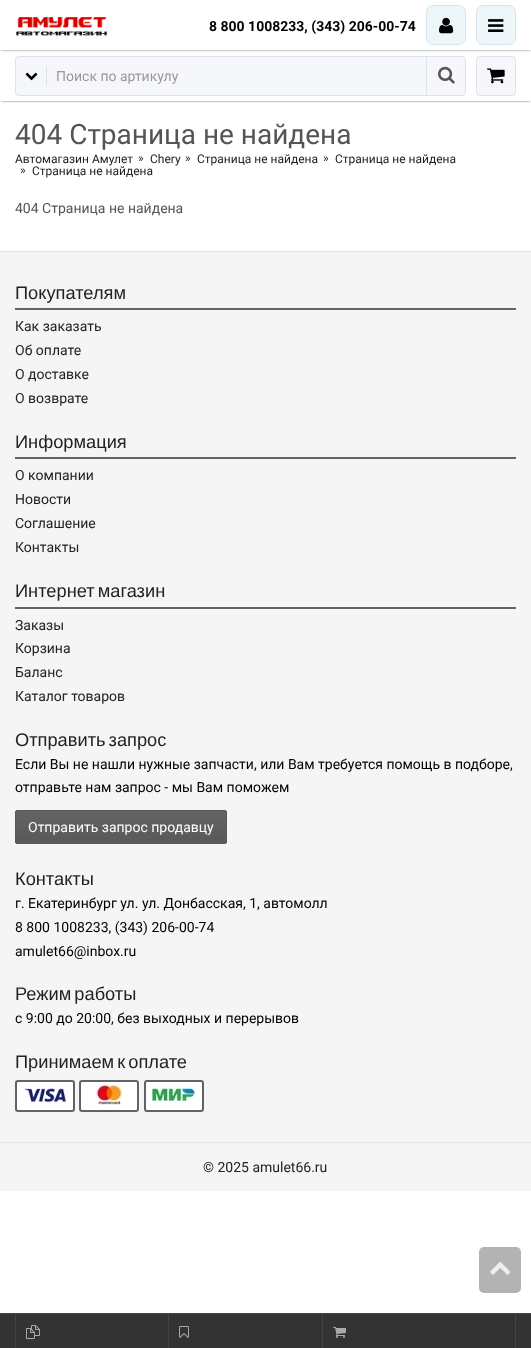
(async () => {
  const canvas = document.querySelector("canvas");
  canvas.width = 531;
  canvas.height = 1348;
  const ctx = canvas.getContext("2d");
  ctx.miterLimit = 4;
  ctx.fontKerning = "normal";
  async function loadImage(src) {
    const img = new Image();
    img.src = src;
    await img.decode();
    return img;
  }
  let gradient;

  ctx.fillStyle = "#ffffff";
  ctx.fillRect(0, 0, 531, 1348);
  ctx.save();
  ctx.beginPath();
  ctx.rect(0, 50, 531, 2);
  ctx.clip();
  ctx.fillStyle = "rgba(0, 0, 0, 0.6)";
  ctx.filter = "blur(1px)";
  ctx.beginPath();
  ctx.rect(1, 2, 529, 48);
  ctx.fill();
  ctx.filter = "none";
  ctx.restore();
  ctx.drawImage(await loadImage("img/1.png"), 15, 5, 93, 40);
  ctx.fillStyle = "#edf7fa";
  ctx.beginPath();
  ctx.roundRect(426.5, 5.5, 39, 39, 6.5);
  ctx.fill();
  ctx.strokeStyle = "#dce3ee";
  ctx.stroke();
  ctx.drawImage(await loadImage("img/2.png"), 439, 17, 15, 17);
  ctx.beginPath();
  ctx.roundRect(476.5, 5.5, 39, 39, 6.5);
  ctx.fill();
  ctx.stroke();
  ctx.drawImage(await loadImage("img/3.png"), 488, 19, 16, 13);
  ctx.save();
  ctx.beginPath();
  ctx.rect(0, 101, 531, 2);
  ctx.clip();
  ctx.fillStyle = "rgba(0, 0, 0, 0.6)";
  ctx.filter = "blur(1px)";
  ctx.beginPath();
  ctx.rect(1, 52, 529, 49);
  ctx.fill();
  ctx.filter = "none";
  ctx.restore();
  ctx.fillStyle = "#f5f7fa";
  ctx.beginPath();
  ctx.roundRect(15.5, 56.5, 450, 39, 3.5);
  ctx.fill();
  ctx.stroke();
  ctx.drawImage(await loadImage("img/4.png"), 25, 72, 13, 9);
  ctx.fillStyle = "#dce3ee";
  ctx.fillRect(46, 66, 1, 20);
  ctx.fillRect(426, 56, 1, 40);
  ctx.drawImage(await loadImage("img/5.png"), 438, 66, 17, 18);
  ctx.fillStyle = "#f5f7fa";
  ctx.beginPath();
  ctx.roundRect(476.5, 56.5, 39, 39, 3.5);
  ctx.fill();
  ctx.stroke();
  ctx.drawImage(await loadImage("img/6.png"), 487, 68, 18, 16);
  for (const [x, y, w, h, color] of [
    [0, 252, 531, 890, "#f5f5f5"],
    [0, 251, 531, 1, "#e4e4e4"],
    [15, 308, 501, 2, "#636363"],
    [15, 457, 501, 2, "#636363"],
    [15, 607, 501, 2, "#636363"],
  ]) {
    ctx.fillStyle = color;
    ctx.fillRect(x, y, w, h);
  }
  ctx.save();
  ctx.beginPath();
  ctx.roundRect(15, 810, 212, 34, 2);
  ctx.clip();
  gradient = ctx.createLinearGradient(121, 811, 121, 843);
  gradient.addColorStop(0.05, "#636363");
  gradient.addColorStop(1, "#595959");
  ctx.fillStyle = gradient;
  ctx.fillRect(15, 811, 212, 32);
  ctx.restore();
  ctx.beginPath();
  ctx.roundRect(15.5, 810.5, 211, 33, 1.5);
  ctx.strokeStyle = "#595959";
  ctx.stroke();
  ctx.fillStyle = "#ffffff";
  ctx.beginPath();
  ctx.roundRect(16, 1081, 58, 30, 2);
  ctx.fill();
  ctx.strokeStyle = "#636363";
  ctx.lineWidth = 2;
  ctx.stroke();
  ctx.drawImage(await loadImage("img/7.png"), 24, 1088, 43, 14);
  ctx.beginPath();
  ctx.roundRect(80, 1081, 58, 30, 2);
  ctx.fill();
  ctx.stroke();
  ctx.drawImage(await loadImage("img/8.png"), 96, 1085, 26, 20);
  ctx.beginPath();
  ctx.roundRect(145, 1081, 58, 30, 2);
  ctx.fill();
  ctx.stroke();
  ctx.drawImage(await loadImage("img/9.png"), 152, 1088, 43, 13);
  ctx.fillStyle = "#f5f5f5";
  ctx.fillRect(0, 1143, 531, 48);
  ctx.fillStyle = "#e4e4e4";
  ctx.fillRect(0, 1142, 531, 1);
  ctx.fillStyle = "#b3b3b3";
  ctx.beginPath();
  ctx.roundRect(479, 1247, 42, 46, 5);
  ctx.fill();
  ctx.drawImage(await loadImage("img/10.png"), 490, 1261, 21, 14);
  for (const [x, y, w, h, color] of [
    [0, 1314, 531, 34, "#333333"],
    [0, 1313, 531, 1, "#444444"],
    [515, 1314, 1, 34, "#444444"],
    [15, 1314, 1, 34, "#444444"],
  ]) {
    ctx.fillStyle = color;
    ctx.fillRect(x, y, w, h);
  }
  ctx.drawImage(await loadImage("img/11.png"), 26, 1325, 14, 14);
  ctx.fillRect(168, 1314, 1, 34);
  ctx.drawImage(await loadImage("img/12.png"), 179, 1326, 10, 12);
  ctx.fillRect(322, 1314, 1, 34);
  ctx.drawImage(await loadImage("img/13.png"), 333, 1327, 13, 11);
  ctx.font = "bold 14px Roboto";
  ctx.fillStyle = "#000000";
  ctx.fillText("8 800 1008233, (343) 206-00-74", 209, 31);
  ctx.font = "14px Roboto";
  ctx.fillStyle = "#999999";
  ctx.fillText("Поиск по артикулу", 56, 81);
  ctx.font = "28px Roboto";
  ctx.fillStyle = "#555555";
  ctx.fillText("404 Страница не найдена", 15, 144);
  ctx.font = "12px Roboto";
  ctx.fillStyle = "#222222";
  for (const [text, x, y] of [
    ["Автомагазин Амулет", 15, 163],
    ["»", 138, 162],
    ["Chery", 150, 163],
    ["»", 185, 162],
    ["Страница не найдена", 197, 163],
    ["»", 323, 162],
    ["Страница не найдена", 335, 163],
    ["»", 20, 174],
    ["Страница не найдена", 32, 175],
  ]) {
    ctx.fillText(text, x, y);
  }
  ctx.font = "14px Roboto";
  ctx.fillStyle = "#555555";
  ctx.fillText("404 Страница не найдена", 15, 213);
  ctx.font = "18.25px Liberation Sans";
  ctx.fillStyle = "#222222";
  ctx.fillText("Покупателям", 15, 299);
  ctx.font = "14px Roboto";
  for (const [text, x, y] of [
    ["Как заказать", 15, 331],
    ["Об оплате", 15, 355],
    ["О доставке", 15, 379],
    ["О возврате", 15, 403],
  ]) {
    ctx.fillText(text, x, y);
  }
  ctx.font = "18.25px Liberation Sans";
  ctx.fillText("Информация", 15, 448);
  ctx.font = "14px Roboto";
  for (const [text, x, y] of [
    ["О компании", 15, 480],
    ["Новости", 15, 504],
    ["Соглашение", 15, 528],
    ["Контакты", 15, 552],
  ]) {
    ctx.fillText(text, x, y);
  }
  ctx.wordSpacing = "-2px";
  ctx.font = "18.25px Liberation Sans";
  ctx.fillText("Интернет магазин", 15, 597);
  ctx.wordSpacing = "0px";
  ctx.font = "14px Roboto";
  for (const [text, x, y] of [
    ["Заказы", 15, 630],
    ["Корзина", 15, 653],
    ["Баланс", 15, 677],
    ["Каталог товаров", 15, 701],
  ]) {
    ctx.fillText(text, x, y);
  }
  ctx.wordSpacing = "-2px";
  ctx.font = "18.25px Liberation Sans";
  ctx.fillText("Отправить запрос", 15, 746);
  ctx.wordSpacing = "0px";
  ctx.font = "14px Roboto";
  ctx.fillStyle = "#000000";
  ctx.fillText("Если Вы не нашли нужные запчасти, или Вам требуется помощь в подборе,", 15, 769);
  ctx.fillText("отправьте нам запрос - мы Вам поможем", 15, 792);
  ctx.fillStyle = "#ffffff";
  ctx.fillText("Отправить запрос продавцу", 28, 832);
  ctx.font = "18.25px Liberation Sans";
  ctx.fillStyle = "#222222";
  ctx.fillText("Контакты", 15, 885);
  ctx.font = "14px Roboto";
  ctx.fillStyle = "#000000";
  for (const [text, x, y] of [
    ["г. Екатеринбург ул. ул. Донбасская, 1, автомолл", 15, 908],
    ["8 800 1008233, (343) 206-00-74", 15, 932],
    ["amulet66@inbox.ru", 15, 956],
  ]) {
    ctx.fillText(text, x, y);
  }
  ctx.wordSpacing = "-2px";
  ctx.font = "18.25px Liberation Sans";
  ctx.fillStyle = "#222222";
  ctx.fillText("Режим работы", 15, 1000);
  ctx.wordSpacing = "0px";
  ctx.font = "14px Roboto";
  ctx.fillStyle = "#000000";
  ctx.fillText("с 9:00 до 20:00, без выходных и перерывов", 15, 1023);
  ctx.wordSpacing = "-2px";
  ctx.font = "18.25px Liberation Sans";
  ctx.fillStyle = "#222222";
  ctx.fillText("Принимаем к оплате", 15, 1068);
  ctx.wordSpacing = "0px";
  ctx.font = "14px Roboto";
  ctx.fillText("© 2025 amulet66.ru", 203, 1172);
})();
